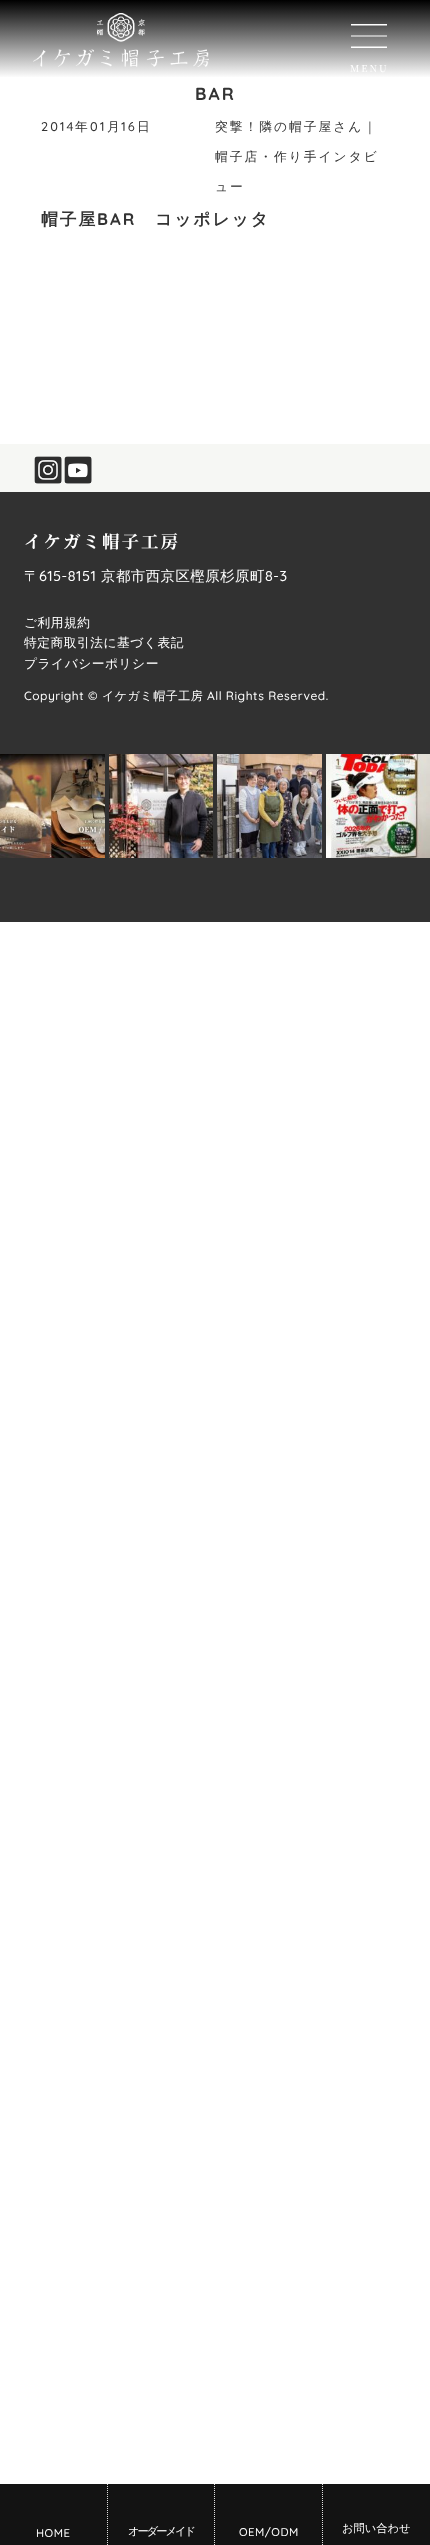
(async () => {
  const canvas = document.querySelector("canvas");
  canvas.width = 430;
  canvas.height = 2545;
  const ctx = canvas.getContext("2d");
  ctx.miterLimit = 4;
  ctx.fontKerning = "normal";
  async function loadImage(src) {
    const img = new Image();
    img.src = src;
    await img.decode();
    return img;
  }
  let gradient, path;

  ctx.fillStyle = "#ffffff";
  ctx.fillRect(0, 0, 430, 2545);
  gradient = ctx.createLinearGradient(215, 0, 215, 78);
  gradient.addColorStop(0, "#000000");
  gradient.addColorStop(1, "#ffffff");
  ctx.fillStyle = gradient;
  ctx.fillRect(0, 0, 430, 77);
  ctx.drawImage(await loadImage("img/1.png"), 33, 13, 176, 54);
  ctx.fillStyle = "#ffffff";
  path = new Path2D("M351 48V46.5H387V48ZM351 36.5V35.5H387V36.5ZM351 25.5V24H387V25.5Z");
  ctx.fill(path);
  ctx.fillStyle = "#f6f7f4";
  ctx.fillRect(0, 444, 430, 48);
  ctx.drawImage(await loadImage("img/2.png"), 34, 456, 28, 28);
  ctx.drawImage(await loadImage("img/3.png"), 64, 456, 28, 28);
  ctx.fillStyle = "#313131";
  ctx.fillRect(0, 492, 430, 430);
  ctx.drawImage(await loadImage("img/4.png"), 0, 754, 105, 104);
  ctx.drawImage(await loadImage("img/5.png"), 109, 754, 104, 104);
  ctx.drawImage(await loadImage("img/6.png"), 217, 754, 105, 104);
  ctx.drawImage(await loadImage("img/7.png"), 326, 754, 104, 104);
  ctx.fillStyle = "#131313";
  ctx.fillRect(0, 2484, 430, 61);
  path = new Path2D("M107.5 2484V2545");
  ctx.strokeStyle = "#e0e0e0";
  ctx.setLineDash([1, 1]);
  ctx.stroke(path);
  path = new Path2D("M214.5 2484V2545");
  ctx.stroke(path);
  path = new Path2D("M322.5 2484V2545");
  ctx.stroke(path);
  ctx.letterSpacing = "2px";
  ctx.font = "500 9.5px Noto Serif JP";
  ctx.fillStyle = "#ffffff";
  ctx.fillText("MENU", 350, 72);
  ctx.font = "bold 17.5px Quicksand";
  ctx.fillStyle = "#333333";
  ctx.fillText("BAR", 195, 100);
  ctx.font = "500 12.75px Quicksand";
  ctx.fillText("2014", 41, 131);
  ctx.font = "500 12.75px WenQuanYi Zen Hei";
  ctx.fillText("年", 75, 131);
  ctx.font = "500 12.75px Quicksand";
  ctx.fillText("01", 90, 131);
  ctx.font = "500 12.75px WenQuanYi Zen Hei";
  ctx.fillText("月", 107, 131);
  ctx.font = "500 12.75px Quicksand";
  ctx.fillText("16", 121, 131);
  ctx.font = "500 12.75px WenQuanYi Zen Hei";
  for (const [text, x, y] of [
    ["日", 137, 131],
    ["突撃！隣の帽子屋さん｜", 215, 131],
    ["帽子店・作り手インタビ", 215, 161],
    ["ュー", 215, 191],
  ]) {
    ctx.fillText(text, x, y);
  }
  ctx.font = "bold 16.75px WenQuanYi Zen Hei";
  ctx.fillText("帽子屋", 41, 225);
  ctx.font = "bold 16.75px Quicksand";
  ctx.fillText("BAR", 97, 225);
  ctx.font = "bold 16.75px WenQuanYi Zen Hei";
  ctx.fillText("コッポレッタ", 155, 225);
  ctx.font = "bold 17.5px Noto Serif JP";
  ctx.fillStyle = "#ffffff";
  ctx.fillText("イケガミ帽子工房", 24, 548);
  ctx.letterSpacing = "0.5px";
  ctx.font = "500 14.4px WenQuanYi Zen Hei";
  ctx.fillText("〒", 24, 581);
  ctx.font = "500 14.4px Quicksand";
  ctx.fillText("615-8151", 39, 581);
  ctx.font = "500 14.4px WenQuanYi Zen Hei";
  ctx.fillText("京都市西京区樫原杉原町", 101, 581);
  ctx.font = "500 14.4px Quicksand";
  ctx.fillText("8-3", 265, 581);
  ctx.font = "500 12.75px WenQuanYi Zen Hei";
  for (const [text, x, y] of [
    ["ご利用規約", 24, 627],
    ["特定商取引法に基づく表記", 24, 647],
    ["プライバシーポリシー", 24, 668],
  ]) {
    ctx.fillText(text, x, y);
  }
  ctx.font = "500 12px Quicksand";
  ctx.fillText("Copyright ©", 24, 700);
  ctx.font = "500 12px WenQuanYi Zen Hei";
  ctx.fillText("イケガミ帽子工房", 102, 700);
  ctx.font = "500 12px Quicksand";
  ctx.fillText("All Rights Reserved.", 207, 700);
  ctx.font = "500 11.25px Quicksand";
  ctx.fillText("HOME", 36, 2537);
  ctx.letterSpacing = "-2px";
  ctx.font = "500 11.25px WenQuanYi Zen Hei";
  ctx.fillText("オーダーメイド", 128, 2535);
  ctx.letterSpacing = "0.5px";
  ctx.font = "500 11.25px Quicksand";
  ctx.fillText("OEM/ODM", 239, 2536);
  ctx.letterSpacing = "0px";
  ctx.font = "500 11.25px WenQuanYi Zen Hei";
  ctx.fillText("お問い合わせ", 342, 2532);
})();
